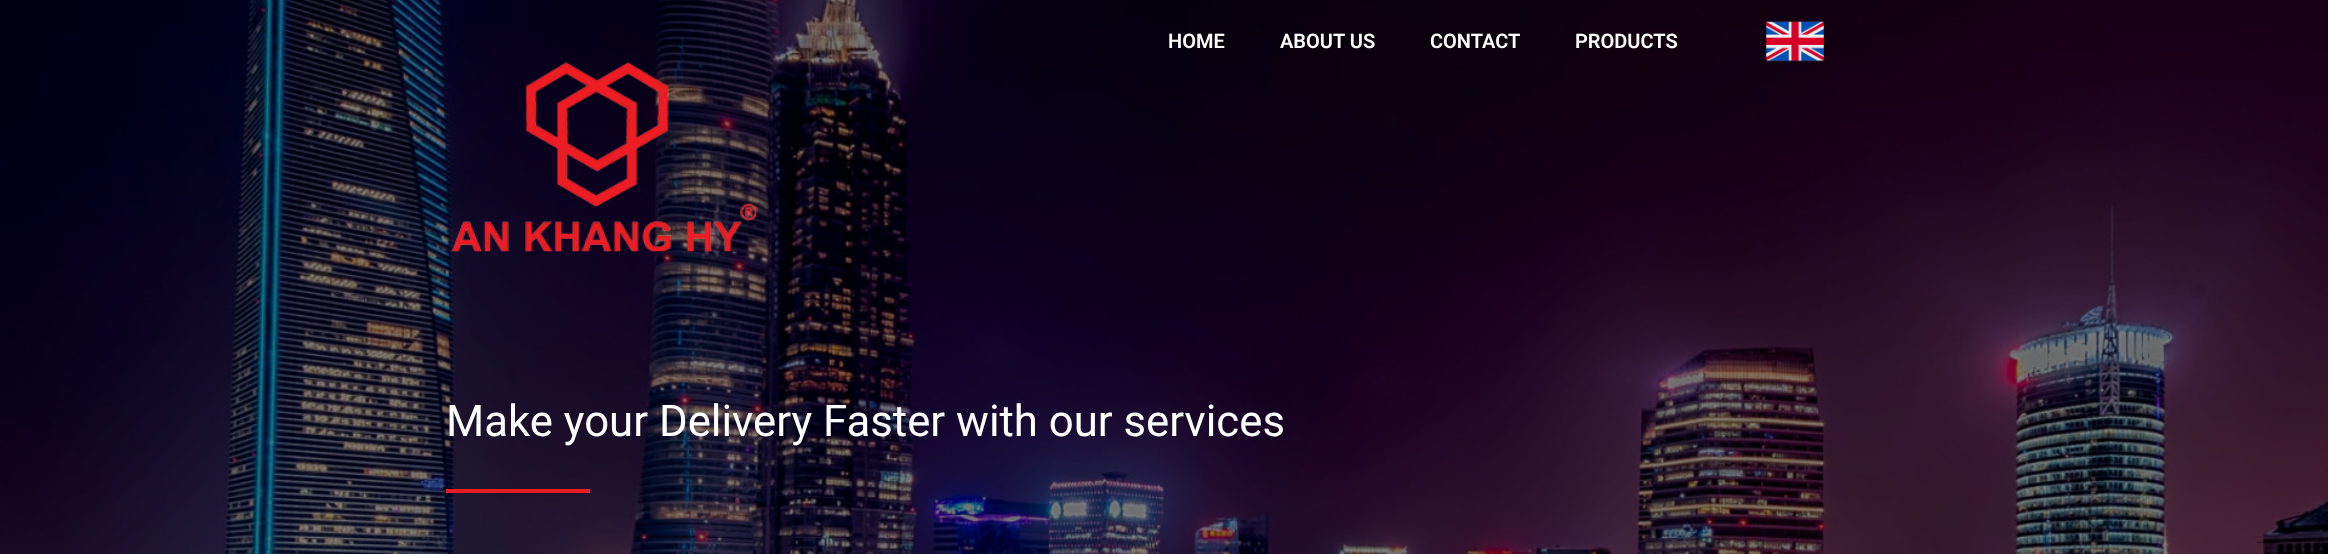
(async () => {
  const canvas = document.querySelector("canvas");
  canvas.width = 2328;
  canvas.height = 554;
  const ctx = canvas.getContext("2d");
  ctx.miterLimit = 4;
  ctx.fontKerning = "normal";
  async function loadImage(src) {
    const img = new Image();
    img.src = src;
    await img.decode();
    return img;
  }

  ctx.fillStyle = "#ffffff";
  ctx.fillRect(0, 0, 2328, 554);
  ctx.drawImage(await loadImage("img/3.png"), 0, 0, 2328, 554);
  ctx.drawImage(await loadImage("img/1.png"), 1766, 21, 58, 41);
  ctx.drawImage(await loadImage("img/2.png"), 451, 62, 306, 190);
  ctx.fillStyle = "#ed1b24";
  ctx.fillRect(446, 489, 144, 4);
  ctx.font = "600 20px Roboto";
  ctx.fillStyle = "#ffffff";
  for (const [text, x, y] of [
    ["HOME", 1168, 48],
    ["ABOUT US", 1280, 48],
    ["CONTACT", 1430, 48],
    ["PRODUCTS", 1575, 48],
  ]) {
    ctx.fillText(text, x, y);
  }
  ctx.font = "43.75px Roboto";
  ctx.fillText("Make your Delivery Faster with our services", 446, 436);
})();
